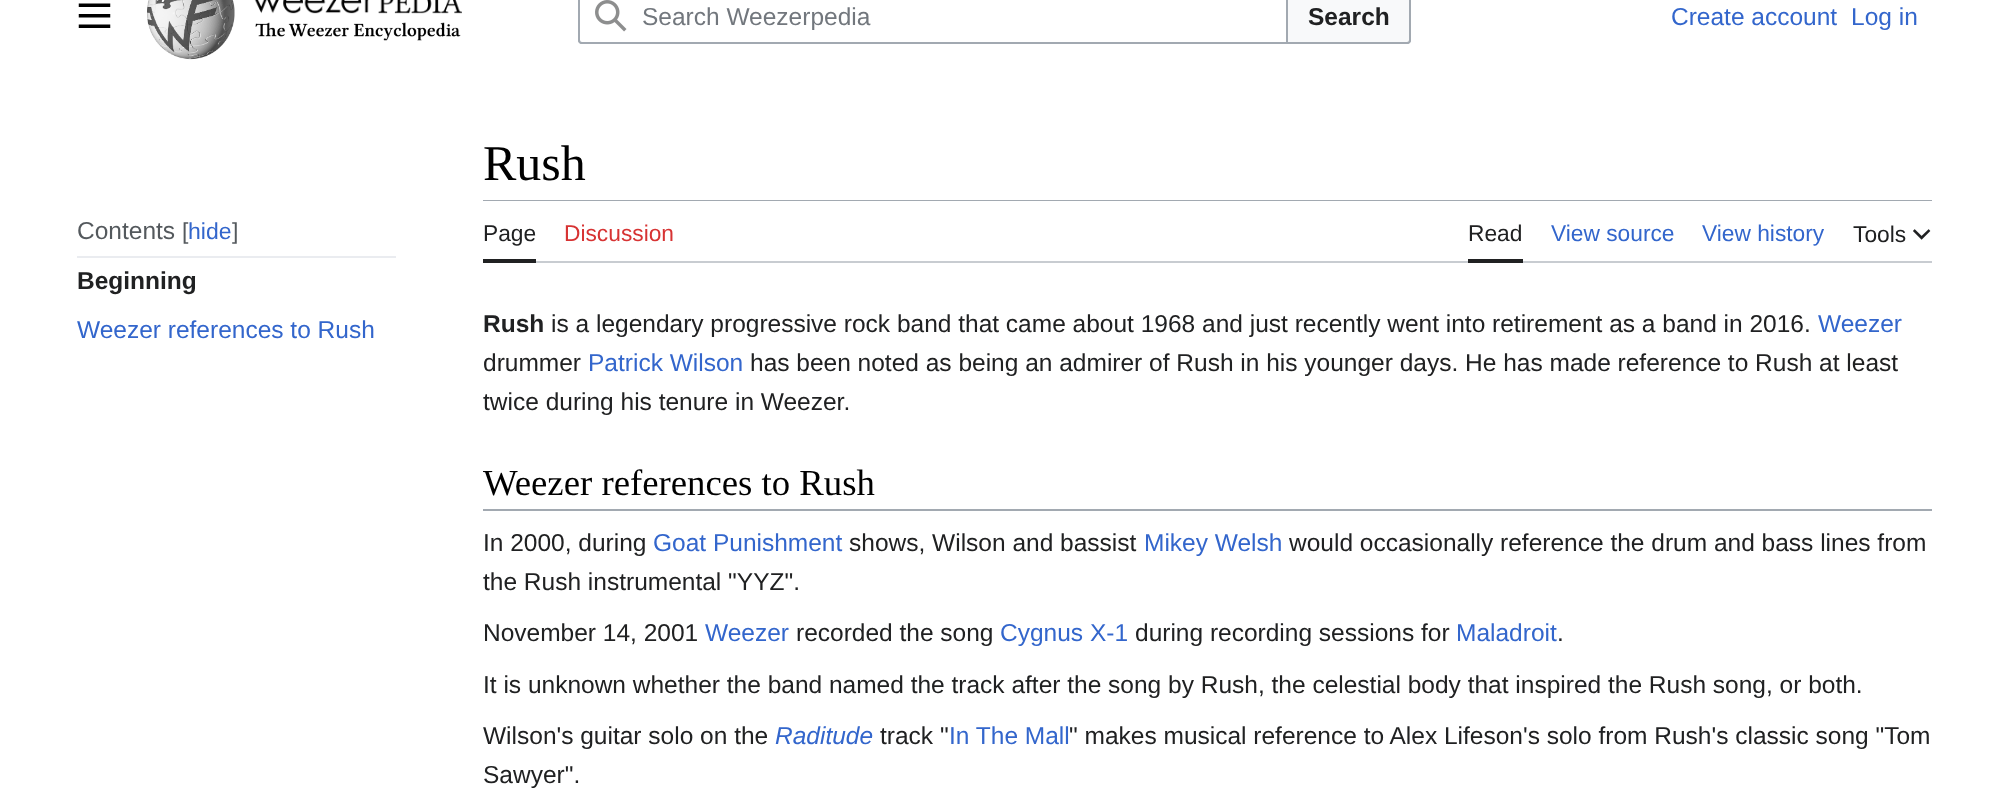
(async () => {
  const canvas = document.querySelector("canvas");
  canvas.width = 2008;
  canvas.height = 805;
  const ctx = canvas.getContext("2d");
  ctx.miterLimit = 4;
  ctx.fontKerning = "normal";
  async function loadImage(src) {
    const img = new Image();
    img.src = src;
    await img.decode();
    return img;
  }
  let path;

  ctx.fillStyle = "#ffffff";
  ctx.fillRect(0, 0, 2008, 805);
  ctx.drawImage(await loadImage("img/1.png"), 78, 3, 33, 25);
  ctx.drawImage(await loadImage("img/2.png"), 147, 0, 88, 60);
  ctx.drawImage(await loadImage("img/3.png"), 254, 0, 208, 14);
  ctx.drawImage(await loadImage("img/4.png"), 255, 22, 206, 19);
  ctx.beginPath();
  ctx.roundRect(579, -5, 831, 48, 3);
  ctx.strokeStyle = "#a2a9b1";
  ctx.lineWidth = 2;
  ctx.stroke();
  ctx.fillStyle = "#f8f9fa";
  path = new Path2D("M1287-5H1407C1408.5-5 1410-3.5 1410-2V40C1410 41.5 1408.5 43 1407 43H1287Z");
  ctx.fill(path);
  ctx.stroke(path);
  ctx.fillStyle = "#ffffff";
  path = new Path2D("M582-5H1287V43H582C580.5 43 579 41.5 579 40V-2C579-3.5 580.5-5 582-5Z");
  ctx.fill(path);
  ctx.stroke(path);
  ctx.drawImage(await loadImage("img/5.png"), 595, 0, 32, 32);
  for (const [x, y, w, h, color] of [
    [77, 256, 319, 2, "#eaecf0"],
    [483, 200, 1449, 1, "#a2a9b1"],
    [536, 261, 1396, 2, "#c8ccd1"],
    [483, 259, 53, 4, "#202122"],
    [1468, 259, 55, 4, "#202122"],
  ]) {
    ctx.fillStyle = color;
    ctx.fillRect(x, y, w, h);
  }
  ctx.drawImage(await loadImage("img/6.png"), 1913, 229, 18, 11);
  ctx.fillStyle = "#a2a9b1";
  ctx.fillRect(483, 509, 1449, 2);
  ctx.font = "24.5px Liberation Sans";
  ctx.fillStyle = "#72777d";
  ctx.fillText("Search Weezerpedia", 642, 25);
  ctx.font = "bold 24.5px Liberation Sans";
  ctx.fillStyle = "#202122";
  ctx.fillText("Search", 1308, 25);
  ctx.font = "24.5px Liberation Sans";
  ctx.fillStyle = "#3366cc";
  ctx.fillText("Create account", 1671, 25);
  ctx.fillText("Log in", 1851, 25);
  ctx.fillStyle = "#54595d";
  ctx.fillText("Contents", 77, 239);
  ctx.font = "23px Liberation Sans";
  ctx.fillText("[", 182, 239);
  ctx.fillStyle = "#3366cc";
  ctx.fillText("hide", 188, 239);
  ctx.fillStyle = "#54595d";
  ctx.fillText("]", 232, 239);
  ctx.font = "bold 24.5px Liberation Sans";
  ctx.fillStyle = "#202122";
  ctx.fillText("Beginning", 77, 289);
  ctx.font = "24.5px Liberation Sans";
  ctx.fillStyle = "#3366cc";
  ctx.fillText("Weezer references to Rush", 77, 338);
  ctx.font = "50px Liberation Serif";
  ctx.fillStyle = "#000000";
  ctx.fillText("Rush", 483, 180);
  ctx.font = "22.75px Liberation Sans";
  ctx.fillStyle = "#202122";
  ctx.fillText("Page", 483, 241);
  ctx.fillStyle = "#d73333";
  ctx.fillText("Discussion", 564, 241);
  ctx.fillStyle = "#202122";
  ctx.fillText("Read", 1468, 241);
  ctx.fillStyle = "#3366cc";
  ctx.fillText("View source", 1551, 241);
  ctx.fillText("View history", 1702, 241);
  ctx.fillStyle = "#202122";
  ctx.fillText("Tools", 1853, 242);
  ctx.font = "bold 24.5px Liberation Sans";
  ctx.fillText("Rush", 483, 332);
  ctx.font = "24.5px Liberation Sans";
  ctx.fillText("is a legendary progressive rock band that came about 1968 and just recently went into retirement as a band in 2016.", 551, 332);
  ctx.fillStyle = "#3366cc";
  ctx.fillText("Weezer", 1818, 332);
  ctx.fillStyle = "#202122";
  ctx.fillText("drummer", 483, 371);
  ctx.fillStyle = "#3366cc";
  ctx.fillText("Patrick Wilson", 588, 371);
  ctx.fillStyle = "#202122";
  ctx.fillText("has been noted as being an admirer of Rush in his younger days. He has made reference to Rush at least", 750, 371);
  ctx.fillText("twice during his tenure in Weezer.", 483, 410);
  ctx.font = "36.75px Liberation Serif";
  ctx.fillStyle = "#000000";
  ctx.fillText("Weezer references to Rush", 483, 495);
  ctx.font = "24.5px Liberation Sans";
  ctx.fillStyle = "#202122";
  ctx.fillText("In 2000, during", 483, 551);
  ctx.fillStyle = "#3366cc";
  ctx.fillText("Goat Punishment", 653, 551);
  ctx.fillStyle = "#202122";
  ctx.fillText("shows, Wilson and bassist", 849, 551);
  ctx.fillStyle = "#3366cc";
  ctx.fillText("Mikey Welsh", 1144, 551);
  ctx.fillStyle = "#202122";
  for (const [text, x, y] of [
    ["would occasionally reference the drum and bass lines from", 1289, 551],
    ["the Rush instrumental \"YYZ\".", 483, 590],
    ["November 14, 2001", 483, 641],
  ]) {
    ctx.fillText(text, x, y);
  }
  ctx.fillStyle = "#3366cc";
  ctx.fillText("Weezer", 705, 641);
  ctx.fillStyle = "#202122";
  ctx.fillText("recorded the song", 796, 641);
  ctx.fillStyle = "#3366cc";
  ctx.fillText("Cygnus X-1", 1000, 641);
  ctx.fillStyle = "#202122";
  ctx.fillText("during recording sessions for", 1135, 641);
  ctx.fillStyle = "#3366cc";
  ctx.fillText("Maladroit", 1456, 641);
  ctx.fillStyle = "#202122";
  for (const [text, x, y] of [
    [".", 1557, 641],
    ["It is unknown whether the band named the track after the song by Rush, the celestial body that inspired the Rush song, or both.", 483, 693],
    ["Wilson's guitar solo on the", 483, 744],
  ]) {
    ctx.fillText(text, x, y);
  }
  ctx.font = "italic 24.5px Liberation Sans";
  ctx.fillStyle = "#3366cc";
  ctx.fillText("Raditude", 775, 744);
  ctx.font = "24.5px Liberation Sans";
  ctx.fillStyle = "#202122";
  ctx.fillText("track \"", 880, 744);
  ctx.fillStyle = "#3366cc";
  ctx.fillText("In The Mall", 949, 744);
  ctx.fillStyle = "#202122";
  ctx.fillText("\" makes musical reference to Alex Lifeson's solo from Rush's classic song \"Tom", 1069, 744);
  ctx.fillText("Sawyer\".", 483, 783);
})();
